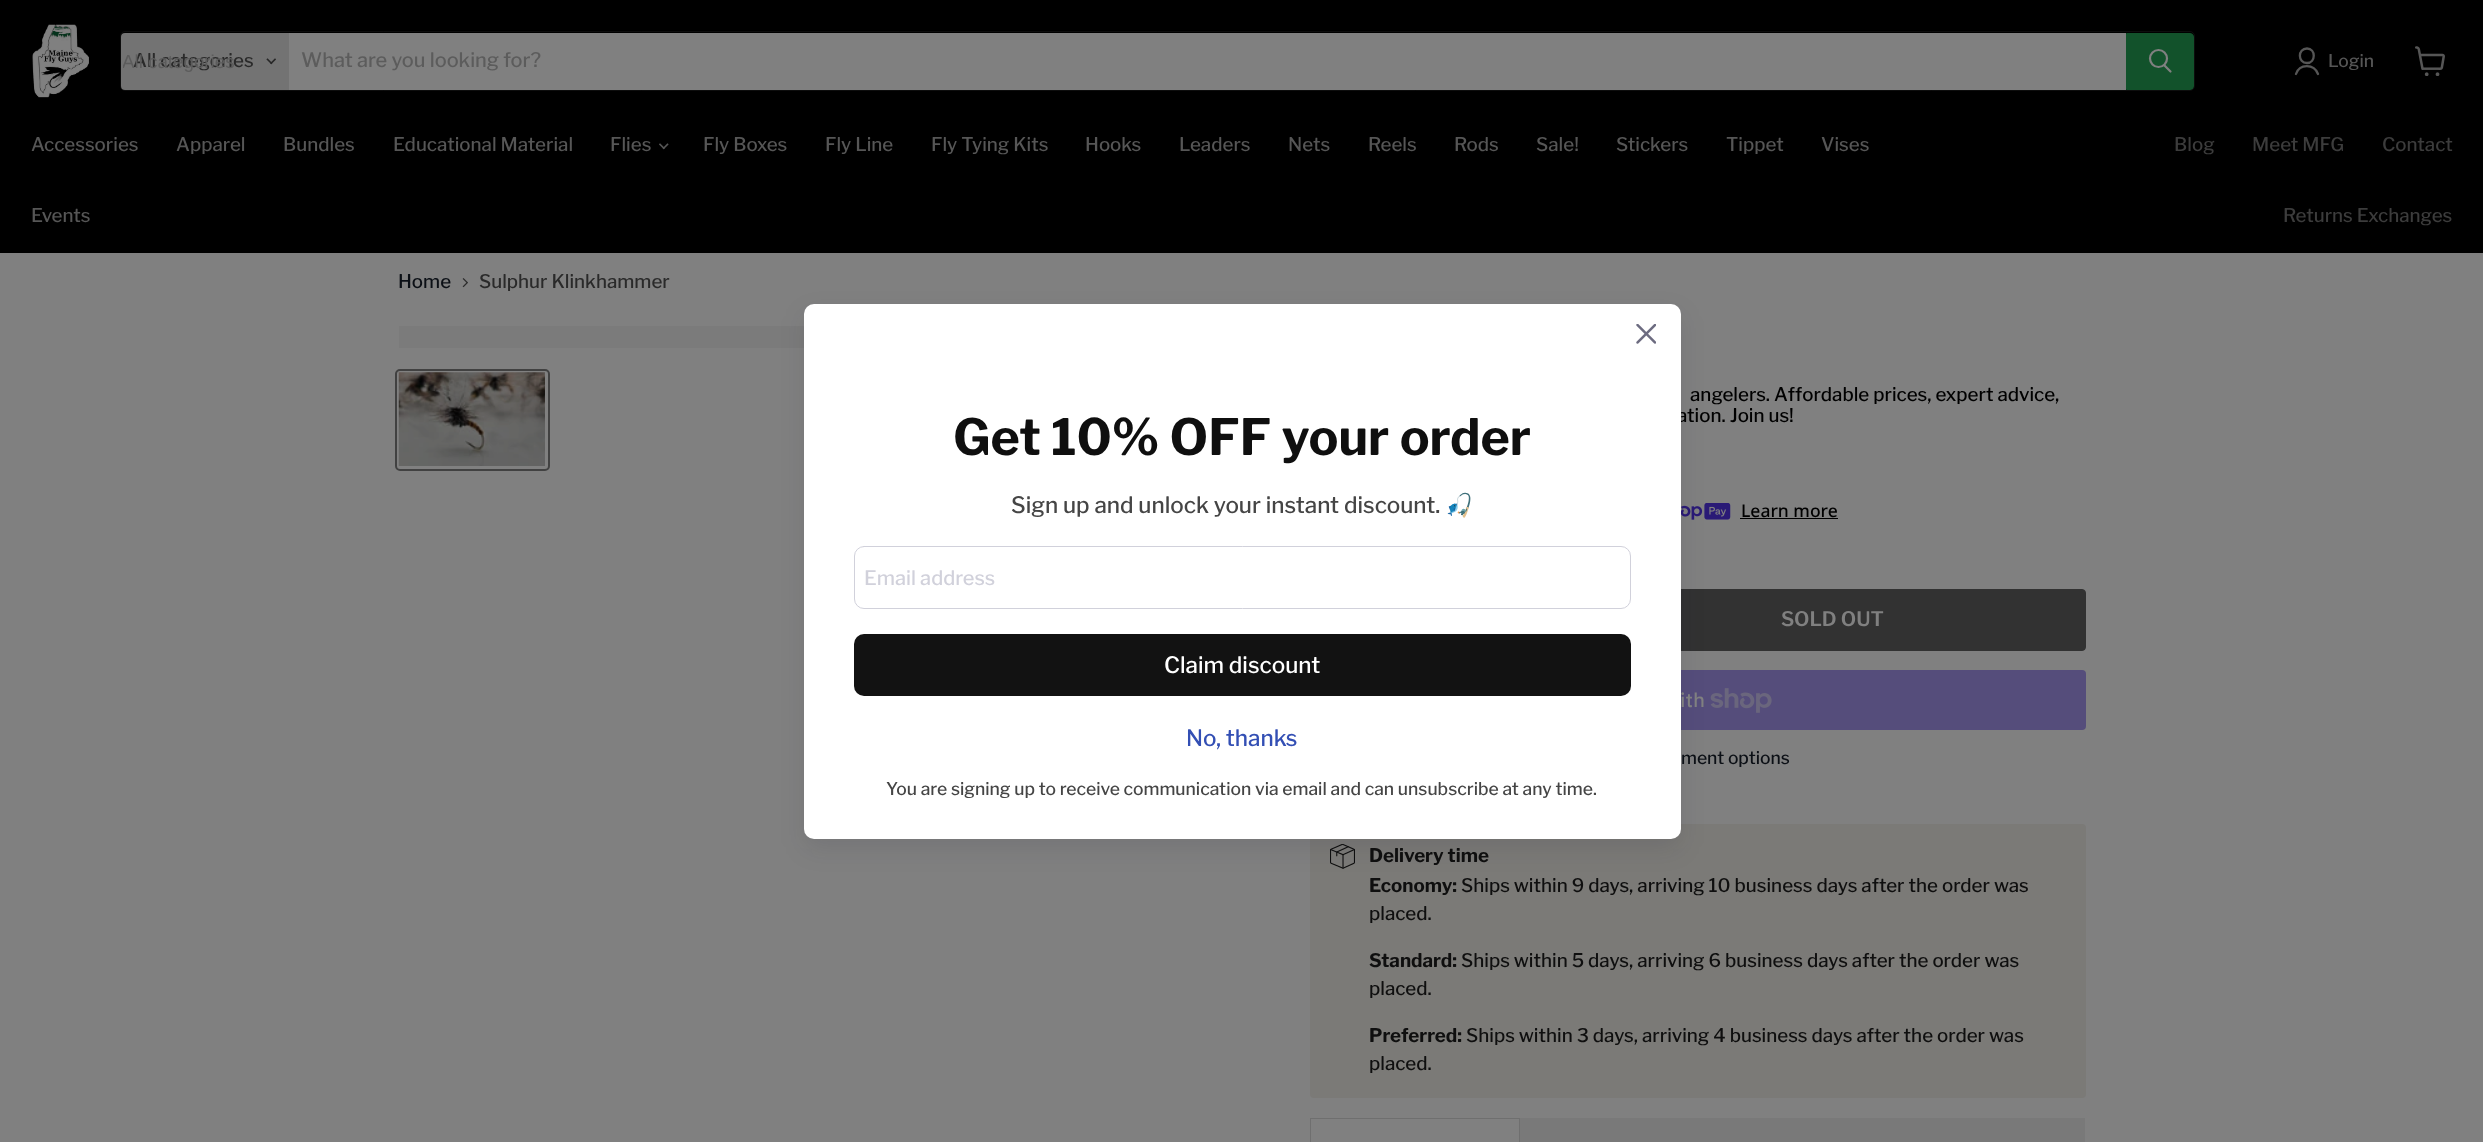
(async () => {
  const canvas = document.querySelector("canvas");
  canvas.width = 2483;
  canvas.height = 1142;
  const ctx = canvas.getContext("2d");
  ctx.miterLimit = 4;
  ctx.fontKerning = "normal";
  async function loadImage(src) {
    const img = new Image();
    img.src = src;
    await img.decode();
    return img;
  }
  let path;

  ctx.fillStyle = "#808080";
  ctx.fillRect(0, 0, 2483, 1142);
  ctx.fillStyle = "#000000";
  ctx.fillRect(0, 0, 2483, 253);
  ctx.drawImage(await loadImage("img/1.png"), 32, 24, 57, 74);
  ctx.beginPath();
  ctx.roundRect(120.5, 31.5, 2074, 59, 4.5);
  ctx.strokeStyle = "rgba(64, 64, 64, 0.2)";
  ctx.stroke();
  ctx.fillStyle = "#737373";
  ctx.beginPath();
  ctx.roundRect(121, 33, 168, 57, [4, 0, 0, 4]);
  ctx.fill();
  ctx.drawImage(await loadImage("img/2.png"), 266, 58, 10, 7);
  ctx.fillStyle = "#808080";
  ctx.fillRect(289, 33, 1837, 57);
  ctx.fillStyle = "#12522b";
  ctx.beginPath();
  ctx.roundRect(2126.5, 33.5, 67, 56, [0, 3.5, 3.5, 0]);
  ctx.fill();
  ctx.strokeStyle = "#12522b";
  ctx.stroke();
  path = new Path2D("M2170.5 71.5L2164.5 65.5");
  ctx.strokeStyle = "#808080";
  ctx.lineWidth = 2.2;
  ctx.lineCap = "round";
  ctx.stroke(path);
  ctx.beginPath();
  ctx.arc(2158.5, 58.5, 8.5, 0, Math.PI * 2);
  ctx.stroke();
  path = new Path2D("M2307 63C2316 63 2316 48.5 2307 48.5C2297.5 48.5 2297.5 63 2307 63ZM2318 74C2314 63.5 2299.5 63.5 2296 74");
  ctx.strokeStyle = "#565656";
  ctx.lineWidth = 2.3;
  ctx.lineJoin = "round";
  ctx.stroke(path);
  ctx.drawImage(await loadImage("img/3.png"), 2415, 46, 30, 30);
  ctx.drawImage(await loadImage("img/4.png"), 659, 143, 10, 7);
  ctx.drawImage(await loadImage("img/5.png"), 462, 278, 6, 10);
  ctx.fillStyle = "#7b7b7b";
  ctx.fillRect(399, 326, 405, 22);
  ctx.beginPath();
  ctx.roundRect(396, 370, 153, 100, 4);
  ctx.strokeStyle = "#414141";
  ctx.lineWidth = 2;
  ctx.lineJoin = "miter";
  ctx.stroke();
  ctx.drawImage(await loadImage("img/6.png"), 398, 372, 147, 94);
  ctx.drawImage(await loadImage("img/7.png"), 1681, 503, 50, 17);
  ctx.fillStyle = "#000000";
  ctx.fillRect(1740, 518, 98, 1);
  ctx.fillStyle = "#323232";
  ctx.beginPath();
  ctx.roundRect(1579.5, 589.5, 506, 61, 3.5);
  ctx.fill();
  ctx.strokeStyle = "#323232";
  ctx.lineWidth = 1;
  ctx.stroke();
  ctx.fillStyle = "#554d7b";
  ctx.beginPath();
  ctx.roundRect(1310, 670, 776, 60, 4);
  ctx.fill();
  ctx.drawImage(await loadImage("img/8.png"), 1710, 688, 62, 25);
  ctx.fillStyle = "#7b7a77";
  ctx.beginPath();
  ctx.roundRect(1310, 824, 776, 274, 4);
  ctx.fill();
  ctx.drawImage(await loadImage("img/9.png"), 1330, 844, 25, 25);
  for (const [x, y, w, h, color] of [
    [1310, 1118, 210, 1, "#6f6f6f"],
    [1519, 1118, 1, 24, "#6f6f6f"],
    [1310, 1118, 1, 24, "#6f6f6f"],
    [1520, 1118, 565, 24, "#797979"],
  ]) {
    ctx.fillStyle = color;
    ctx.fillRect(x, y, w, h);
  }
  ctx.fillStyle = "rgba(18, 17, 39, 0.1)";
  ctx.filter = "blur(12.5px)";
  ctx.beginPath();
  ctx.roundRect(804, 314, 877, 535, 10);
  ctx.fill();
  ctx.filter = "none";
  ctx.font = "500 18.75px Libre Franklin";
  ctx.fillStyle = "#2a2a2a";
  ctx.fillText("All categories", 133, 67);
  ctx.save();
  ctx.beginPath();
  ctx.rect(123, 50, 165, 23);
  ctx.clip();
  ctx.font = "18.75px Liberation Sans";
  ctx.fillStyle = "#5c5c5c";
  ctx.fillText("All categories", 122, 68);
  ctx.restore();
  ctx.font = "500 20px Libre Franklin";
  ctx.fillStyle = "#5c5c5c";
  ctx.fillText("What are you looking for?", 301, 67);
  ctx.font = "500 17.5px Libre Franklin";
  ctx.fillStyle = "#565656";
  ctx.fillText("Login", 2328, 67);
  ctx.font = "500 18.75px Libre Franklin";
  for (const [text, x, y] of [
    ["Accessories", 31, 151],
    ["Apparel", 176, 151],
    ["Bundles", 283, 151],
    ["Educational Material", 393, 151],
    ["Flies", 610, 151],
    ["Fly Boxes", 703, 151],
    ["Fly Line", 825, 151],
    ["Fly Tying Kits", 931, 151],
    ["Hooks", 1085, 151],
    ["Leaders", 1179, 151],
    ["Nets", 1288, 151],
    ["Reels", 1368, 151],
    ["Rods", 1454, 151],
    ["Sale!", 1536, 151],
    ["Stickers", 1616, 151],
    ["Tippet", 1726, 151],
    ["Vises", 1821, 151],
    ["Events", 31, 222],
  ]) {
    ctx.fillText(text, x, y);
  }
  ctx.fillStyle = "#3c3c3c";
  for (const [text, x, y] of [
    ["Blog", 2174, 151],
    ["Meet MFG", 2252, 151],
    ["Contact", 2382, 151],
    ["Returns Exchanges", 2283, 222],
  ]) {
    ctx.fillText(text, x, y);
  }
  ctx.fillStyle = "#0c1016";
  ctx.fillText("Home", 398, 288);
  ctx.fillStyle = "#2a2a2a";
  ctx.fillText("Sulphur Klinkhammer", 479, 288);
  ctx.fillStyle = "#000000";
  ctx.fillText("angelers. Affordable prices, expert advice,", 1690, 401);
  ctx.fillText("ation. Join us!", 1677, 422);
  ctx.font = "500 17.5px Noto Sans";
  ctx.fillText("Learn more", 1741, 517);
  ctx.font = "600 20px Libre Franklin";
  ctx.fillStyle = "#808080";
  ctx.fillText("SOLD OUT", 1781, 626);
  ctx.font = "500 20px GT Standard";
  ctx.fillText("ith", 1680, 707);
  ctx.font = "500 17.5px Libre Franklin";
  ctx.fillStyle = "#0c1016";
  ctx.fillText("ment options", 1681, 764);
  ctx.font = "bold 18.75px Libre Franklin";
  ctx.fillStyle = "#0f0f0f";
  ctx.fillText("Delivery time", 1369, 862);
  ctx.fillText("Economy:", 1369, 892);
  ctx.font = "500 18.75px Libre Franklin";
  ctx.fillText("Ships within 9 days, arriving 10 business days after the order was", 1461, 892);
  ctx.fillText("placed.", 1369, 920);
  ctx.font = "bold 18.75px Libre Franklin";
  ctx.fillText("Standard:", 1369, 967);
  ctx.font = "500 18.75px Libre Franklin";
  ctx.fillText("Ships within 5 days, arriving 6 business days after the order was", 1461, 967);
  ctx.fillText("placed.", 1369, 995);
  ctx.font = "bold 18.75px Libre Franklin";
  ctx.fillText("Preferred:", 1369, 1042);
  ctx.font = "500 18.75px Libre Franklin";
  ctx.fillText("Ships within 3 days, arriving 4 business days after the order was", 1466, 1042);
  ctx.fillText("placed.", 1369, 1070);
  ctx.fillStyle = "#ffffff";
  ctx.beginPath();
  ctx.roundRect(804, 304, 877, 535, 10);
  ctx.fill();
  ctx.drawImage(await loadImage("img/10.png"), 1636, 324, 20, 20);
  ctx.font = "bold 50px Libre Franklin";
  ctx.fillStyle = "#0f0f0f";
  ctx.fillText("Get 10% OFF your order", 953, 455);
  ctx.font = "500 22.5px Libre Franklin";
  ctx.fillStyle = "#454545";
  ctx.fillText("Sign up and unlock your instant discount.", 1011, 513);
  ctx.font = "22.5px Noto Color Emoji";
  ctx.fillText("🎣", 1445, 513);
  ctx.beginPath();
  ctx.roundRect(854.5, 546.5, 776, 62, 9.5);
  ctx.strokeStyle = "#d1d1db";
  ctx.stroke();
  ctx.font = "500 20px Libre Franklin";
  ctx.fillStyle = "#d1d1db";
  ctx.fillText("Email address", 864, 585);
  ctx.fillStyle = "#121212";
  ctx.beginPath();
  ctx.roundRect(854, 634, 777, 62, 10);
  ctx.fill();
  ctx.font = "500 22.5px Libre Franklin";
  ctx.fillStyle = "#ffffff";
  ctx.fillText("Claim discount", 1164, 673);
  ctx.fillStyle = "#334fb4";
  ctx.fillText("No, thanks", 1186, 746);
  ctx.font = "500 17.5px Libre Franklin";
  ctx.fillStyle = "#454545";
  ctx.fillText("You are signing up to receive communication via email and can unsubscribe at any time.", 886, 795);
})();
